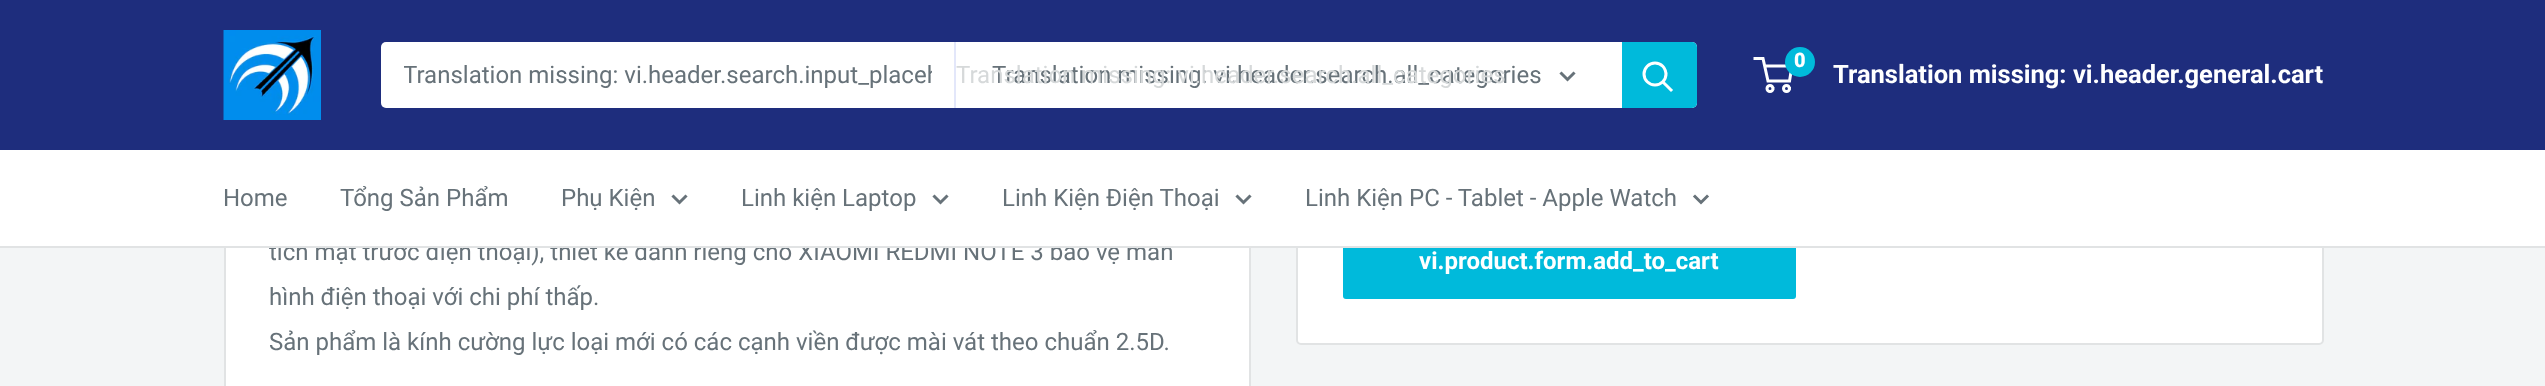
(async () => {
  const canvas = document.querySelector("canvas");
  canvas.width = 2545;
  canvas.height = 386;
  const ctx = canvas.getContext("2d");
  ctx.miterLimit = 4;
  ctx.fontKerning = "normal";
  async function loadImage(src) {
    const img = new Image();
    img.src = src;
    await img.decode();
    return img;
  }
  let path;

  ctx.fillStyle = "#f3f5f6";
  ctx.fillRect(0, 0, 2545, 386);
  ctx.fillStyle = "#ffffff";
  ctx.fillRect(226, 248, 1023, 138);
  ctx.strokeStyle = "#e1e3e4";
  ctx.lineWidth = 2;
  ctx.strokeRect(225, -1, 1025, 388);
  ctx.beginPath();
  ctx.roundRect(1297, -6, 1026, 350, 4);
  ctx.fill();
  ctx.stroke();
  ctx.fillStyle = "#1e2d7d";
  ctx.fillRect(0, 0, 2545, 150);
  ctx.drawImage(await loadImage("img/1.png"), 223, 30, 98, 90);
  ctx.fillStyle = "#ffffff";
  ctx.beginPath();
  ctx.roundRect(381, 42, 1316, 66, 5);
  ctx.fill();
  ctx.fillStyle = "#e3e7fa";
  ctx.fillRect(954, 42, 2, 66);
  path = new Path2D("M1573.5 73.5L1567.5 79.5L1561.5 73.5");
  ctx.strokeStyle = "#677279";
  ctx.lineWidth = 3;
  ctx.lineCap = "square";
  ctx.stroke(path);
  ctx.fillStyle = "#00badb";
  ctx.beginPath();
  ctx.roundRect(1622, 42, 75, 66, [0, 5, 5, 0]);
  ctx.fill();
  path = new Path2D("M1671 90L1663.5 82.5");
  ctx.strokeStyle = "#ffffff";
  ctx.stroke(path);
  ctx.beginPath();
  ctx.arc(1655, 74, 11, 0, Math.PI * 2);
  ctx.stroke();
  ctx.beginPath();
  ctx.arc(1770, 88.5, 3, 0, Math.PI * 2);
  ctx.stroke();
  ctx.beginPath();
  ctx.arc(1786.5, 88.5, 3, 0, Math.PI * 2);
  ctx.stroke();
  path = new Path2D("M1764.5 66H1792L1789.5 81H1768L1763 58.5H1753.5");
  ctx.lineCap = "butt";
  ctx.stroke(path);
  ctx.beginPath();
  ctx.arc(1800, 62, 15, 0, Math.PI * 2);
  ctx.fill();
  ctx.beginPath();
  ctx.roundRect(1343, 155, 453, 144, 3);
  ctx.fill();
  ctx.save();
  ctx.beginPath();
  ctx.rect(404, 60, 528, 29);
  ctx.clip();
  ctx.font = "24px Roboto";
  ctx.fillStyle = "#677279";
  ctx.fillText("Translation missing: vi.header.search.input_placeh", 403, 83);
  ctx.restore();
  ctx.font = "24px Roboto";
  ctx.fillStyle = "#677279";
  ctx.fillText("Translation missing: vi.header.search.all_categories", 992, 83);
  ctx.fillStyle = "#d6d9da";
  ctx.fillText("Translation missing: vi.header.search.all_categories", 956, 83);
  ctx.font = "900 20px Roboto";
  ctx.fillStyle = "#ffffff";
  ctx.fillText("0", 1794, 67);
  ctx.font = "bold 25.5px Roboto";
  ctx.fillText("Translation missing: vi.header.general.cart", 1833, 83);
  ctx.font = "24px Roboto";
  ctx.fillStyle = "#677279";
  ctx.fillText("tích mặt trước điện thoại), thiết kế dành riêng cho XIAOMI REDMI NOTE 3 bảo vệ màn", 269, 260);
  ctx.fillStyle = "#ffffff";
  ctx.fillRect(0, 150, 2545, 96);
  ctx.fillStyle = "#677279";
  ctx.fillText("Tổng Sản Phẩm", 340, 206);
  ctx.fillText("Home", 223, 206);
  path = new Path2D("M1707 196.5L1701 202.5L1695 196.5");
  ctx.strokeStyle = "#677279";
  ctx.lineCap = "square";
  ctx.stroke(path);
  path = new Path2D("M1249.5 196.5L1243.5 202.5L1237.5 196.5");
  ctx.stroke(path);
  path = new Path2D("M946.5 196.5L940.5 202.5L934.5 196.5");
  ctx.stroke(path);
  path = new Path2D("M685.5 196.5L679.5 202.5L673.5 196.5");
  ctx.stroke(path);
  for (const [text, x, y] of [
    ["Linh Kiện PC - Tablet - Apple Watch", 1305, 206],
    ["Linh Kiện Điện Thoại", 1002, 206],
    ["Linh kiện Laptop", 741, 206],
    ["Phụ Kiện", 561, 206],
  ]) {
    ctx.fillText(text, x, y);
  }
  ctx.fillStyle = "#e1e3e4";
  ctx.fillRect(0, 246, 2545, 2);
  ctx.fillStyle = "#677279";
  ctx.fillText("hình điện thoại với chi phí thấp.", 269, 305);
  ctx.fillText("Sản phẩm là kính cường lực loại mới có các cạnh viền được mài vát theo chuẩn 2.5D.", 269, 350);
  ctx.font = "bold 24px Roboto";
  ctx.fillStyle = "#ffffff";
  ctx.fillText("vi.product.form.add_to_cart", 1419, 269);
})();
